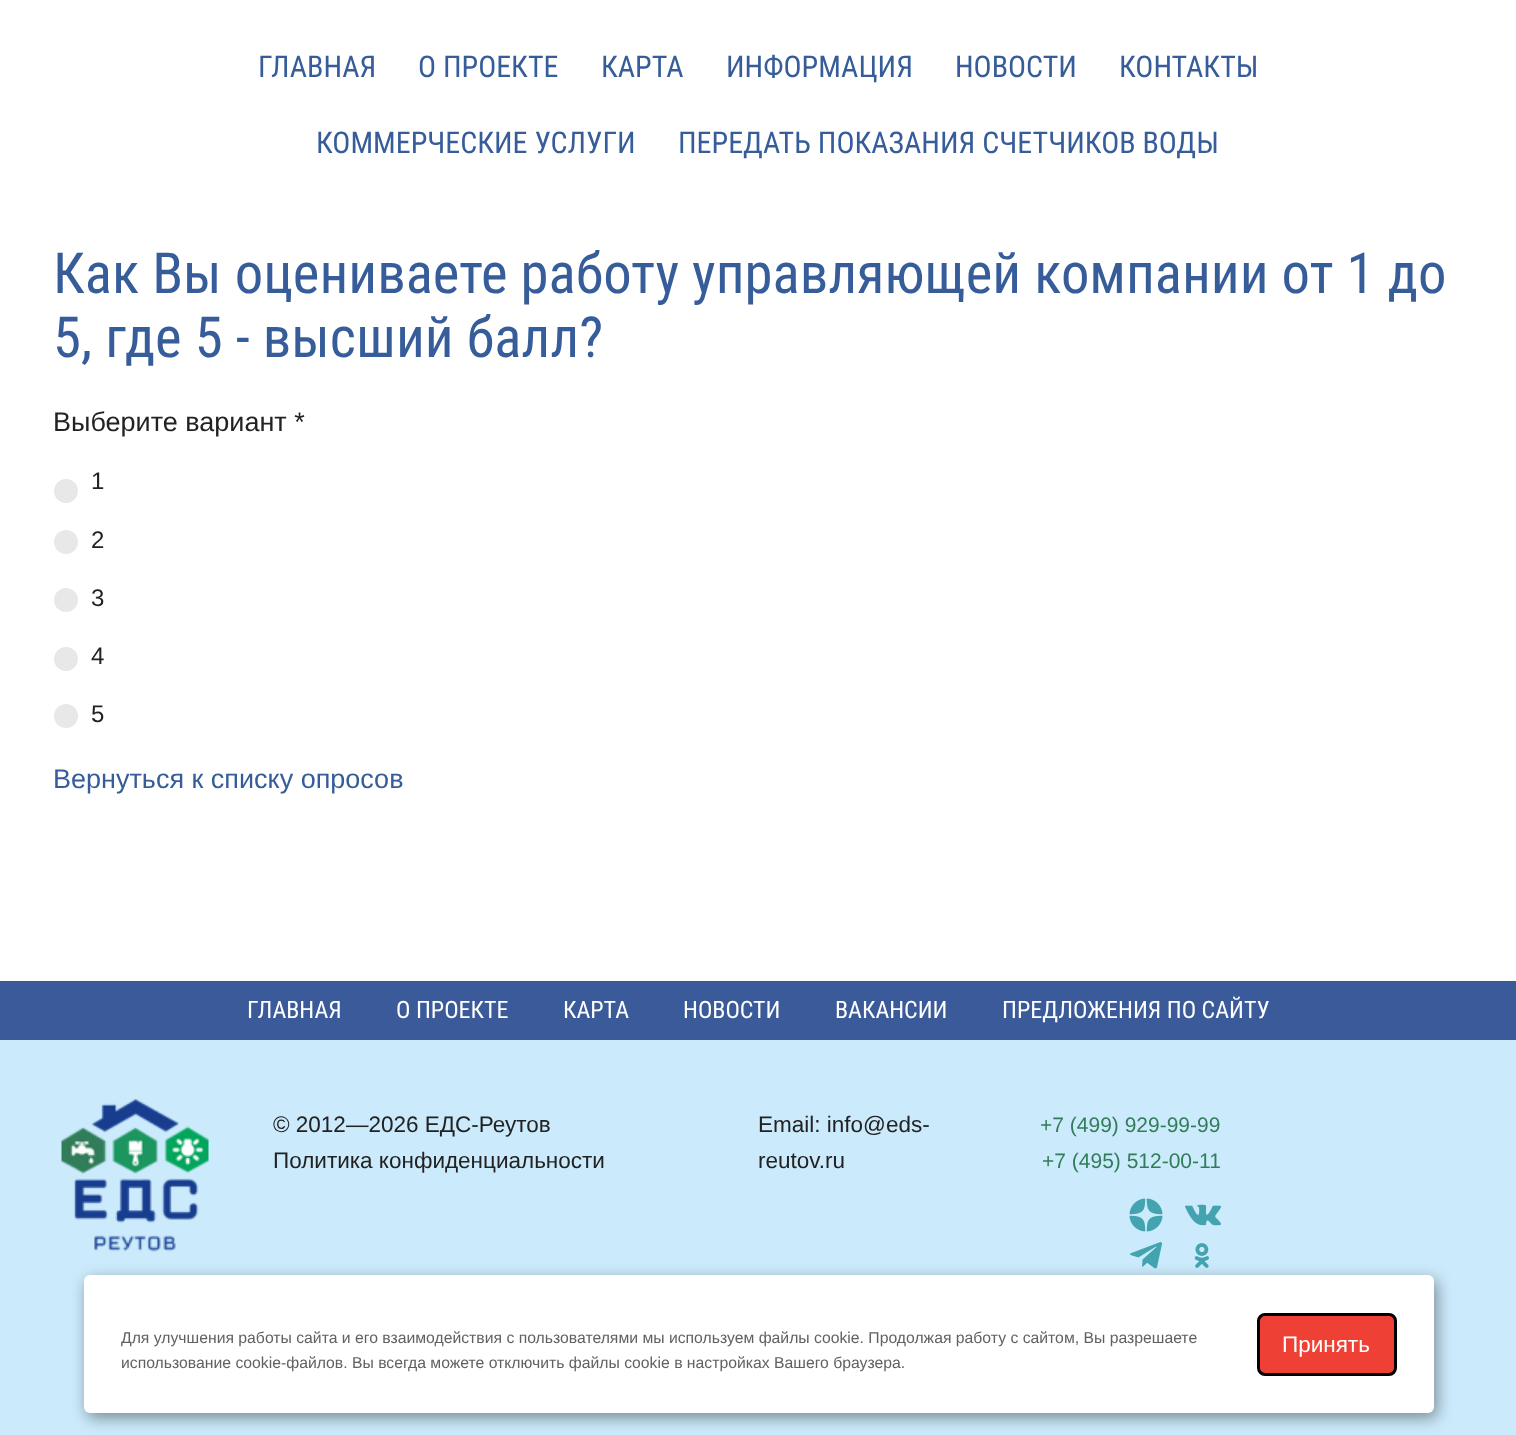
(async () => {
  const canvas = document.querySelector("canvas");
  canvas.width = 1516;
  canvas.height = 1435;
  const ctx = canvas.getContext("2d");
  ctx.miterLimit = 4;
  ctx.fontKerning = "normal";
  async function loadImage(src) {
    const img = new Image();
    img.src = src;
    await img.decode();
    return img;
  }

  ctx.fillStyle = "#ffffff";
  ctx.fillRect(0, 0, 1516, 1435);
  ctx.fillStyle = "#e8e8e8";
  ctx.beginPath();
  ctx.arc(66, 491, 12, 0, Math.PI * 2);
  ctx.fill();
  ctx.beginPath();
  ctx.arc(66, 542, 12, 0, Math.PI * 2);
  ctx.fill();
  ctx.beginPath();
  ctx.arc(66, 600, 12, 0, Math.PI * 2);
  ctx.fill();
  ctx.beginPath();
  ctx.arc(66, 659, 12, 0, Math.PI * 2);
  ctx.fill();
  ctx.beginPath();
  ctx.arc(66, 716, 12, 0, Math.PI * 2);
  ctx.fill();
  ctx.fillStyle = "#3a5a99";
  ctx.fillRect(0, 981, 1516, 59);
  ctx.fillStyle = "#cbeafb";
  ctx.fillRect(0, 1040, 1516, 395);
  ctx.drawImage(await loadImage("img/1.png"), 61, 1099, 148, 153);
  ctx.drawImage(await loadImage("img/2.png"), 1129, 1198, 34, 34);
  ctx.drawImage(await loadImage("img/3.png"), 1185, 1204, 36, 22);
  ctx.drawImage(await loadImage("img/4.png"), 1130, 1242, 32, 27);
  ctx.drawImage(await loadImage("img/5.png"), 1194, 1243, 15, 25);
  ctx.fillStyle = "rgba(0, 0, 0, 0.4)";
  ctx.filter = "blur(7.5px)";
  ctx.beginPath();
  ctx.roundRect(87, 1280, 1350, 138, 6);
  ctx.fill();
  ctx.filter = "none";
  ctx.fillStyle = "#ffffff";
  ctx.beginPath();
  ctx.roundRect(84, 1275, 1350, 138, 6);
  ctx.fill();
  ctx.fillStyle = "#ef4036";
  ctx.beginPath();
  ctx.roundRect(1258.5, 1314.5, 137, 60, 6.5);
  ctx.fill();
  ctx.strokeStyle = "#000000";
  ctx.lineWidth = 3;
  ctx.stroke();
  ctx.font = "30px Roboto Condensed";
  ctx.fillStyle = "#365d9a";
  for (const [text, x, y] of [
    ["ГЛАВНАЯ", 258, 77],
    ["О ПРОЕКТЕ", 418, 77],
    ["КАРТА", 601, 77],
    ["ИНФОРМАЦИЯ", 726, 77],
    ["НОВОСТИ", 955, 77],
    ["КОНТАКТЫ", 1119, 77],
    ["КОММЕРЧЕСКИЕ УСЛУГИ", 316, 153],
    ["ПЕРЕДАТЬ ПОКАЗАНИЯ СЧЕТЧИКОВ ВОДЫ", 678, 153],
  ]) {
    ctx.fillText(text, x, y);
  }
  ctx.font = "56.7px Roboto Condensed";
  ctx.fillText("Как Вы оцениваете работу управляющей компании от 1 до", 53, 293);
  ctx.fillText("5, где 5 - высший балл?", 53, 357);
  ctx.font = "27px Liberation Sans";
  ctx.fillStyle = "#222222";
  ctx.fillText("Выберите вариант *", 53, 431);
  ctx.font = "24px Liberation Sans";
  for (const [text, x, y] of [
    ["1", 91, 489],
    ["2", 91, 548],
    ["3", 91, 606],
    ["4", 91, 664],
    ["5", 91, 722],
  ]) {
    ctx.fillText(text, x, y);
  }
  ctx.font = "27px Liberation Sans";
  ctx.fillStyle = "#365d9a";
  ctx.fillText("Вернуться к списку опросов", 53, 788);
  ctx.font = "24px Roboto Condensed";
  ctx.fillStyle = "#ffffff";
  for (const [text, x, y] of [
    ["ГЛАВНАЯ", 247, 1018],
    ["О ПРОЕКТЕ", 396, 1018],
    ["КАРТА", 563, 1018],
    ["НОВОСТИ", 683, 1018],
    ["ВАКАНСИИ", 835, 1018],
    ["ПРЕДЛОЖЕНИЯ ПО САЙТУ", 1002, 1018],
  ]) {
    ctx.fillText(text, x, y);
  }
  ctx.font = "22.5px Liberation Sans";
  ctx.fillStyle = "#222222";
  for (const [text, x, y] of [
    ["© 2012—2026 ЕДС-Реутов", 273, 1132],
    ["Политика конфиденциальности", 273, 1168],
    ["Email: info@eds-", 758, 1132],
    ["reutov.ru", 758, 1168],
  ]) {
    ctx.fillText(text, x, y);
  }
  ctx.font = "21px Liberation Sans";
  ctx.fillStyle = "#317d59";
  ctx.fillText("+7 (499) 929-99-99", 1040, 1132);
  ctx.fillText("+7 (495) 512-00-11", 1042, 1168);
  ctx.font = "15.75px Liberation Sans";
  ctx.fillStyle = "#616161";
  ctx.fillText("Для улучшения работы сайта и его взаимодействия с пользователями мы используем файлы cookie. Продолжая работу с сайтом, Вы разрешаете", 121, 1343);
  ctx.fillText("использование cookie-файлов. Вы всегда можете отключить файлы cookie в настройках Вашего браузера.", 121, 1368);
  ctx.font = "22.5px Liberation Sans";
  ctx.fillStyle = "#ffffff";
  ctx.fillText("Принять", 1282, 1352);
})();
